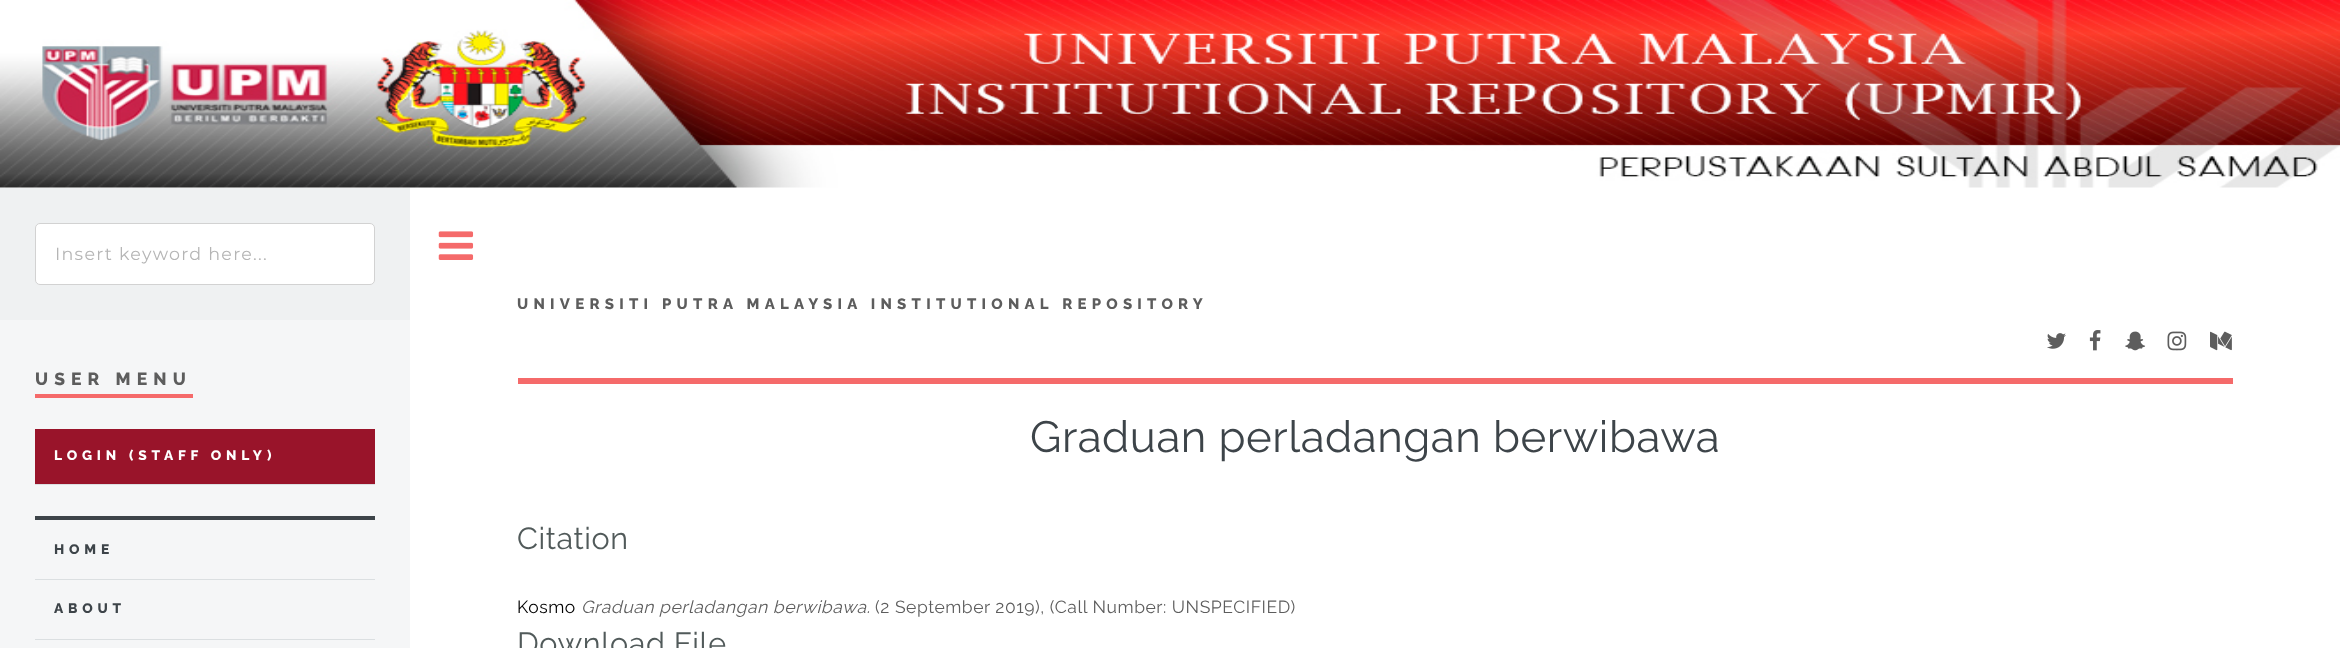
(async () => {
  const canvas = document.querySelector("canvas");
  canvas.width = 2340;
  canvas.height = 648;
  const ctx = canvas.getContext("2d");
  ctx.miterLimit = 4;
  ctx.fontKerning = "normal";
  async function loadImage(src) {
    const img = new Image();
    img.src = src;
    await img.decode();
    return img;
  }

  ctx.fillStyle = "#ffffff";
  ctx.fillRect(0, 0, 2340, 648);
  ctx.drawImage(await loadImage("img/1.png"), 0, 0, 2340, 188);
  ctx.fillStyle = "#f5f6f7";
  ctx.fillRect(0, 320, 410, 328);
  ctx.fillStyle = "#eff1f2";
  ctx.fillRect(0, 188, 410, 132);
  ctx.fillStyle = "#ffffff";
  ctx.beginPath();
  ctx.roundRect(35.5, 223.5, 339, 61, 4.5);
  ctx.fill();
  ctx.strokeStyle = "#d2d2d2";
  ctx.stroke();
  for (const [x, y, w, h, color] of [
    [35, 394, 158, 4, "#f56a6a"],
    [35, 429, 340, 55, "#99142a"],
    [35, 484, 340, 1, "#dbdfe1"],
    [35, 516, 340, 4, "#3d4449"],
    [35, 579, 340, 1, "#dbdfe1"],
    [35, 639, 340, 1, "#dbdfe1"],
  ]) {
    ctx.fillStyle = color;
    ctx.fillRect(x, y, w, h);
  }
  ctx.drawImage(await loadImage("img/2.png"), 438, 231, 36, 29);
  ctx.fillStyle = "#f56a6a";
  ctx.fillRect(518, 378, 1715, 6);
  ctx.drawImage(await loadImage("img/3.png"), 2047, 333, 19, 16);
  ctx.drawImage(await loadImage("img/4.png"), 2089, 330, 12, 21);
  ctx.drawImage(await loadImage("img/5.png"), 2125, 331, 21, 20);
  ctx.drawImage(await loadImage("img/6.png"), 2167, 331, 20, 20);
  ctx.drawImage(await loadImage("img/7.png"), 2210, 331, 22, 20);
  ctx.letterSpacing = "1.25px";
  ctx.font = "17.5px Montserrat";
  ctx.fillStyle = "#b5b5b5";
  ctx.fillText("Insert keyword here...", 55, 260);
  ctx.letterSpacing = "6.1px";
  ctx.font = "800 17.5px Raleway";
  ctx.fillStyle = "#5d5d5d";
  ctx.fillText("USER MENU", 35, 385);
  ctx.letterSpacing = "4.8px";
  ctx.font = "800 13.75px Raleway";
  ctx.fillStyle = "#ffffff";
  ctx.fillText("LOGIN (STAFF ONLY)", 54, 460);
  ctx.fillStyle = "#3d4449";
  ctx.fillText("HOME", 54, 554);
  ctx.fillText("ABOUT", 54, 613);
  ctx.letterSpacing = "5.25px";
  ctx.font = "800 15px Raleway";
  ctx.fillStyle = "#5d5d5d";
  ctx.fillText("UNIVERSITI PUTRA MALAYSIA INSTITUTIONAL REPOSITORY", 517, 309);
  ctx.letterSpacing = "0.55px";
  ctx.font = "43.75px Raleway";
  ctx.fillStyle = "#3d4449";
  ctx.fillText("Graduan perladangan berwibawa", 1030, 452);
  ctx.font = "30.5px Raleway";
  ctx.fillStyle = "#515a5a";
  ctx.fillText("Citation", 517, 549);
  ctx.font = "17.5px Raleway";
  ctx.fillStyle = "#000000";
  ctx.fillText("Kosmo", 517, 613);
  ctx.font = "italic 17.5px Raleway";
  ctx.fillStyle = "#5d5d5d";
  ctx.fillText("Graduan perladangan berwibawa.", 581, 613);
  ctx.font = "17.5px Raleway";
  ctx.fillText("(2 September 2019), (Call Number: UNSPECIFIED)", 875, 613);
  ctx.font = "30.5px Raleway";
  ctx.fillStyle = "#515a5a";
  ctx.fillText("Download File", 517, 654);
})();
